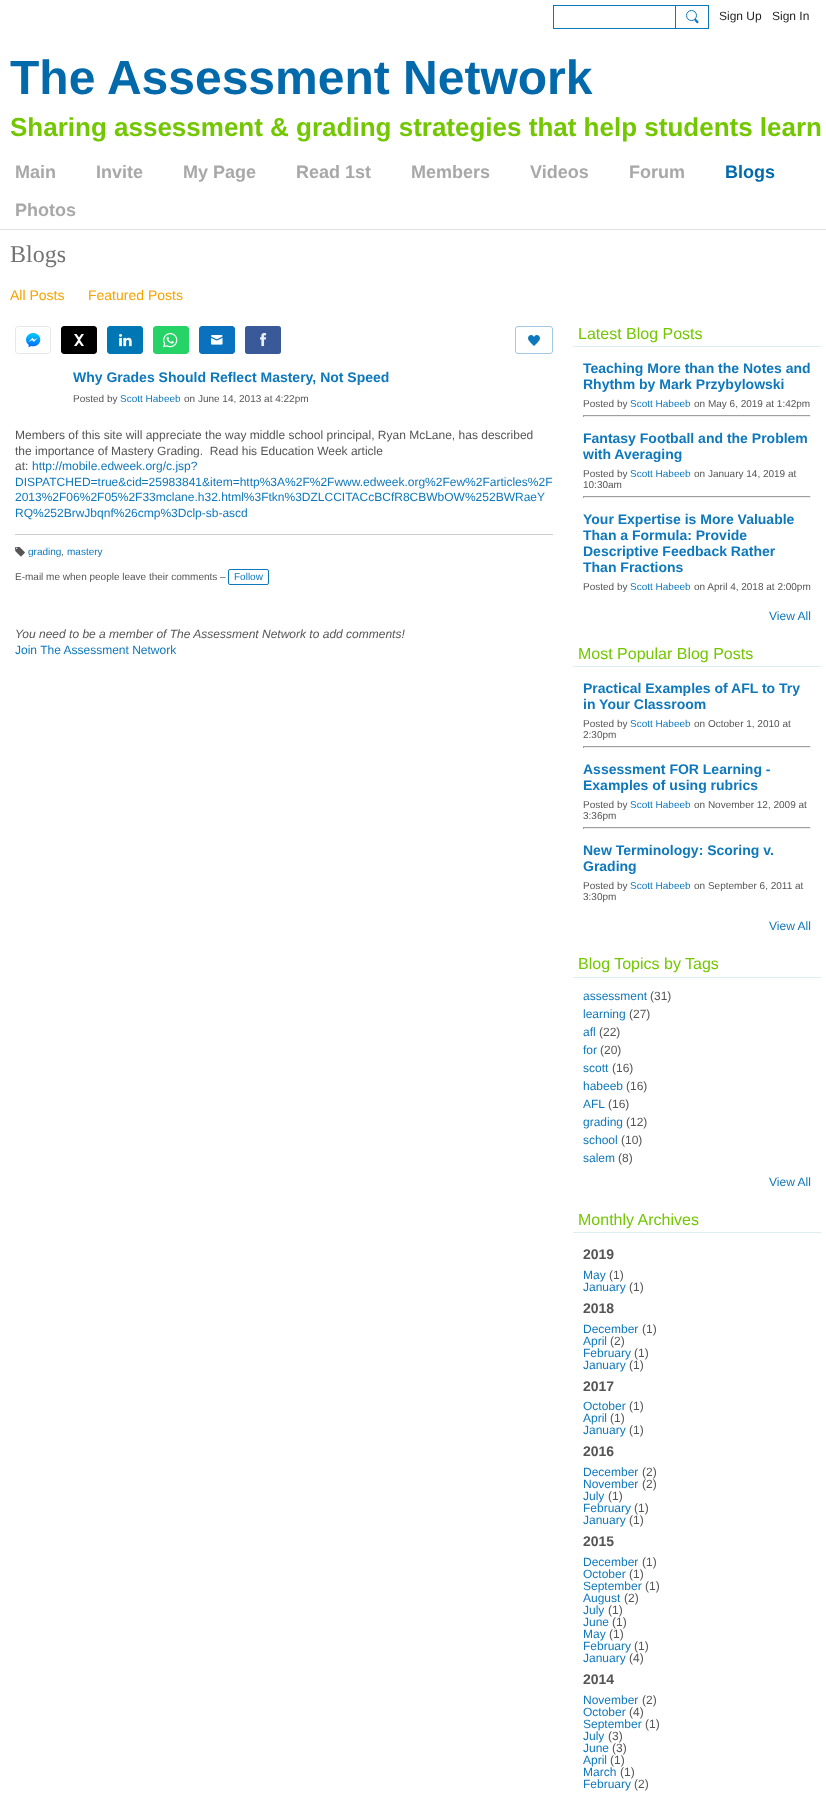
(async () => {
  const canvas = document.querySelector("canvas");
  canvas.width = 826;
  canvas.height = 1793;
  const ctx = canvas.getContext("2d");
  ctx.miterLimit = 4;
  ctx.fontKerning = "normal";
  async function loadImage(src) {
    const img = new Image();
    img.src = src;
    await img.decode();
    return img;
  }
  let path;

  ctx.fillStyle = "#ffffff";
  ctx.fillRect(0, 0, 826, 1793);
  ctx.strokeStyle = "#0e78bc";
  ctx.strokeRect(553.5, 5.5, 122, 23);
  ctx.strokeRect(675.5, 5.5, 33, 23);
  ctx.beginPath();
  ctx.arc(691.5, 15.5, 5, 0, Math.PI * 2);
  ctx.stroke();
  ctx.fillStyle = "#0e78bc";
  path = new Path2D("M696 19L698.5 21.5C698.5 22 698.5 22.5 698 23C697 24 695.5 21.5 694.5 20.5C694 19.5 695 18.5 696 19Z");
  ctx.fill(path);
  ctx.fillStyle = "#e3e3e3";
  ctx.fillRect(0, 229, 826, 1);
  ctx.drawImage(await loadImage("img/1.png"), 15, 326, 36, 28);
  ctx.drawImage(await loadImage("img/2.png"), 61, 326, 36, 28);
  ctx.drawImage(await loadImage("img/3.png"), 107, 326, 36, 28);
  ctx.drawImage(await loadImage("img/4.png"), 153, 326, 36, 28);
  ctx.drawImage(await loadImage("img/5.png"), 199, 326, 36, 28);
  ctx.fillStyle = "#3b5998";
  ctx.beginPath();
  ctx.roundRect(245, 326, 36, 28, 3);
  ctx.fill();
  ctx.drawImage(await loadImage("img/6.png"), 245, 326, 36, 28);
  ctx.beginPath();
  ctx.roundRect(515.5, 326.5, 37, 27, 2.5);
  ctx.strokeStyle = "#9fc9e4";
  ctx.stroke();
  ctx.drawImage(await loadImage("img/7.png"), 528, 335, 12, 11);
  ctx.fillStyle = "#cccccc";
  ctx.fillRect(15, 534, 538, 1);
  ctx.drawImage(await loadImage("img/8.png"), 15, 547, 10, 10);
  ctx.beginPath();
  ctx.roundRect(228.5, 569.5, 40, 15, 1.5);
  ctx.strokeStyle = "#0e78bc";
  ctx.stroke();
  for (const [x, y, w, h, color] of [
    [573, 346, 248, 1, "#deecf4"],
    [583, 415, 228, 1, "#9f9f9f"],
    [810, 415, 1, 2, "#eeeeee"],
    [583, 416, 228, 1, "#eeeeee"],
    [583, 415, 1, 2, "#9f9f9f"],
    [583, 496, 228, 1, "#9f9f9f"],
    [810, 496, 1, 2, "#eeeeee"],
    [583, 497, 228, 1, "#eeeeee"],
    [583, 496, 1, 2, "#9f9f9f"],
    [573, 666, 248, 1, "#deecf4"],
    [583, 746, 228, 1, "#9f9f9f"],
    [810, 746, 1, 2, "#eeeeee"],
    [583, 747, 228, 1, "#eeeeee"],
    [583, 746, 1, 2, "#9f9f9f"],
    [583, 827, 228, 1, "#9f9f9f"],
    [810, 827, 1, 2, "#eeeeee"],
    [583, 828, 228, 1, "#eeeeee"],
    [583, 827, 1, 2, "#9f9f9f"],
    [573, 977, 248, 1, "#deecf4"],
    [573, 1232, 248, 1, "#deecf4"],
  ]) {
    ctx.fillStyle = color;
    ctx.fillRect(x, y, w, h);
  }
  ctx.font = "12px Liberation Sans";
  ctx.fillStyle = "#1f1f1f";
  ctx.fillText("Sign Up", 719, 20);
  ctx.fillText("Sign In", 772, 20);
  ctx.font = "bold 48px Liberation Sans";
  ctx.fillStyle = "#0269ab";
  ctx.fillText("The Assessment Network", 10, 94);
  ctx.font = "bold 26px Liberation Sans";
  ctx.fillStyle = "#73c701";
  ctx.fillText("Sharing assessment & grading strategies that help students learn", 10, 136);
  ctx.font = "bold 18px Liberation Sans";
  ctx.fillStyle = "#a8a8a8";
  for (const [text, x, y] of [
    ["Main", 15, 178],
    ["Invite", 96, 178],
    ["My Page", 183, 178],
    ["Read 1st", 296, 178],
    ["Members", 411, 178],
    ["Videos", 530, 178],
    ["Forum", 629, 178],
  ]) {
    ctx.fillText(text, x, y);
  }
  ctx.fillStyle = "#0269ab";
  ctx.fillText("Blogs", 725, 178);
  ctx.fillStyle = "#a8a8a8";
  ctx.fillText("Photos", 15, 216);
  ctx.font = "24px Liberation Serif";
  ctx.fillStyle = "#737373";
  ctx.fillText("Blogs", 10, 262);
  ctx.font = "14px Liberation Sans";
  ctx.fillStyle = "#f5a300";
  ctx.fillText("All Posts", 10, 300);
  ctx.fillText("Featured Posts", 88, 300);
  ctx.font = "bold 14px Liberation Sans";
  ctx.fillStyle = "#0e78bc";
  ctx.fillText("Why Grades Should Reflect Mastery, Not Speed", 73, 382);
  ctx.font = "10px Liberation Sans";
  ctx.fillStyle = "#555555";
  ctx.fillText("Posted by", 73, 402);
  ctx.fillStyle = "#0e78bc";
  ctx.fillText("Scott Habeeb", 120, 402);
  ctx.fillStyle = "#555555";
  ctx.fillText("on June 14, 2013 at 4:22pm", 184, 402);
  ctx.font = "12px Liberation Sans";
  for (const [text, x, y] of [
    ["Members of this site will appreciate the way middle school principal, Ryan McLane, has described", 15, 439],
    ["the importance of Mastery Grading.  Read his Education Week article", 15, 455],
    ["at:", 15, 470],
  ]) {
    ctx.fillText(text, x, y);
  }
  ctx.fillStyle = "#0e78bc";
  for (const [text, x, y] of [
    ["http://mobile.edweek.org/c.jsp?", 32, 470],
    ["DISPATCHED=true&cid=25983841&item=http%3A%2F%2Fwww.edweek.org%2Few%2Farticles%2F", 15, 486],
    ["2013%2F06%2F05%2F33mclane.h32.html%3Ftkn%3DZLCCITACcBCfR8CBWbOW%252BWRaeY", 15, 501],
    ["RQ%252BrwJbqnf%26cmp%3Dclp-sb-ascd", 15, 517],
  ]) {
    ctx.fillText(text, x, y);
  }
  ctx.font = "10px Liberation Sans";
  ctx.fillText("grading", 28, 555);
  ctx.fillStyle = "#555555";
  ctx.fillText(",", 61, 555);
  ctx.fillStyle = "#0e78bc";
  ctx.fillText("mastery", 67, 555);
  ctx.fillStyle = "#555555";
  ctx.fillText("E-mail me when people leave their comments –", 15, 580);
  ctx.fillStyle = "#0e78bc";
  ctx.fillText("Follow", 234, 580);
  ctx.font = "italic 12px Liberation Sans";
  ctx.fillStyle = "#555555";
  ctx.fillText("You need to be a member of The Assessment Network to add comments!", 15, 638);
  ctx.font = "12px Liberation Sans";
  ctx.fillStyle = "#0e78bc";
  ctx.fillText("Join The Assessment Network", 15, 654);
  ctx.font = "16px Liberation Sans";
  ctx.fillStyle = "#73c701";
  ctx.fillText("Latest Blog Posts", 578, 339);
  ctx.font = "bold 14px Liberation Sans";
  ctx.fillStyle = "#0e78bc";
  ctx.fillText("Teaching More than the Notes and", 583, 373);
  ctx.fillText("Rhythm by Mark Przybylowski", 583, 389);
  ctx.font = "10px Liberation Sans";
  ctx.fillStyle = "#555555";
  ctx.fillText("Posted by", 583, 407);
  ctx.fillStyle = "#0e78bc";
  ctx.fillText("Scott Habeeb", 630, 407);
  ctx.fillStyle = "#555555";
  ctx.fillText("on May 6, 2019 at 1:42pm", 694, 407);
  ctx.font = "bold 14px Liberation Sans";
  ctx.fillStyle = "#0e78bc";
  ctx.fillText("Fantasy Football and the Problem", 583, 443);
  ctx.fillText("with Averaging", 583, 459);
  ctx.font = "10px Liberation Sans";
  ctx.fillStyle = "#555555";
  ctx.fillText("Posted by", 583, 477);
  ctx.fillStyle = "#0e78bc";
  ctx.fillText("Scott Habeeb", 630, 477);
  ctx.fillStyle = "#555555";
  ctx.fillText("on January 14, 2019 at", 694, 477);
  ctx.fillText("10:30am", 583, 488);
  ctx.font = "bold 14px Liberation Sans";
  ctx.fillStyle = "#0e78bc";
  for (const [text, x, y] of [
    ["Your Expertise is More Valuable", 583, 524],
    ["Than a Formula: Provide", 583, 540],
    ["Descriptive Feedback Rather", 583, 556],
    ["Than Fractions", 583, 572],
  ]) {
    ctx.fillText(text, x, y);
  }
  ctx.font = "10px Liberation Sans";
  ctx.fillStyle = "#555555";
  ctx.fillText("Posted by", 583, 590);
  ctx.fillStyle = "#0e78bc";
  ctx.fillText("Scott Habeeb", 630, 590);
  ctx.fillStyle = "#555555";
  ctx.fillText("on April 4, 2018 at 2:00pm", 694, 590);
  ctx.font = "12px Liberation Sans";
  ctx.fillStyle = "#0e78bc";
  ctx.fillText("View All", 769, 620);
  ctx.font = "16px Liberation Sans";
  ctx.fillStyle = "#73c701";
  ctx.fillText("Most Popular Blog Posts", 578, 659);
  ctx.font = "bold 14px Liberation Sans";
  ctx.fillStyle = "#0e78bc";
  ctx.fillText("Practical Examples of AFL to Try", 583, 693);
  ctx.fillText("in Your Classroom", 583, 709);
  ctx.font = "10px Liberation Sans";
  ctx.fillStyle = "#555555";
  ctx.fillText("Posted by", 583, 727);
  ctx.fillStyle = "#0e78bc";
  ctx.fillText("Scott Habeeb", 630, 727);
  ctx.fillStyle = "#555555";
  ctx.fillText("on October 1, 2010 at", 694, 727);
  ctx.fillText("2:30pm", 583, 738);
  ctx.font = "bold 14px Liberation Sans";
  ctx.fillStyle = "#0e78bc";
  ctx.fillText("Assessment FOR Learning -", 583, 774);
  ctx.fillText("Examples of using rubrics", 583, 790);
  ctx.font = "10px Liberation Sans";
  ctx.fillStyle = "#555555";
  ctx.fillText("Posted by", 583, 808);
  ctx.fillStyle = "#0e78bc";
  ctx.fillText("Scott Habeeb", 630, 808);
  ctx.fillStyle = "#555555";
  ctx.fillText("on November 12, 2009 at", 694, 808);
  ctx.fillText("3:36pm", 583, 819);
  ctx.font = "bold 14px Liberation Sans";
  ctx.fillStyle = "#0e78bc";
  ctx.fillText("New Terminology: Scoring v.", 583, 855);
  ctx.fillText("Grading", 583, 871);
  ctx.font = "10px Liberation Sans";
  ctx.fillStyle = "#555555";
  ctx.fillText("Posted by", 583, 889);
  ctx.fillStyle = "#0e78bc";
  ctx.fillText("Scott Habeeb", 630, 889);
  ctx.fillStyle = "#555555";
  ctx.fillText("on September 6, 2011 at", 694, 889);
  ctx.fillText("3:30pm", 583, 900);
  ctx.font = "12px Liberation Sans";
  ctx.fillStyle = "#0e78bc";
  ctx.fillText("View All", 769, 930);
  ctx.font = "16px Liberation Sans";
  ctx.fillStyle = "#73c701";
  ctx.fillText("Blog Topics by Tags", 578, 969);
  ctx.font = "12px Liberation Sans";
  ctx.fillStyle = "#0e78bc";
  ctx.fillText("assessment", 583, 1000);
  ctx.fillStyle = "#555555";
  ctx.fillText("(31)", 650, 1000);
  ctx.fillStyle = "#0e78bc";
  ctx.fillText("learning", 583, 1018);
  ctx.fillStyle = "#555555";
  ctx.fillText("(27)", 629, 1018);
  ctx.fillStyle = "#0e78bc";
  ctx.fillText("afl", 583, 1036);
  ctx.fillStyle = "#555555";
  ctx.fillText("(22)", 599, 1036);
  ctx.fillStyle = "#0e78bc";
  ctx.fillText("for", 583, 1054);
  ctx.fillStyle = "#555555";
  ctx.fillText("(20)", 600, 1054);
  ctx.fillStyle = "#0e78bc";
  ctx.fillText("scott", 583, 1072);
  ctx.fillStyle = "#555555";
  ctx.fillText("(16)", 612, 1072);
  ctx.fillStyle = "#0e78bc";
  ctx.fillText("habeeb", 583, 1090);
  ctx.fillStyle = "#555555";
  ctx.fillText("(16)", 626, 1090);
  ctx.fillStyle = "#0e78bc";
  ctx.fillText("AFL", 583, 1108);
  ctx.fillStyle = "#555555";
  ctx.fillText("(16)", 608, 1108);
  ctx.fillStyle = "#0e78bc";
  ctx.fillText("grading", 583, 1126);
  ctx.fillStyle = "#555555";
  ctx.fillText("(12)", 626, 1126);
  ctx.fillStyle = "#0e78bc";
  ctx.fillText("school", 583, 1144);
  ctx.fillStyle = "#555555";
  ctx.fillText("(10)", 621, 1144);
  ctx.fillStyle = "#0e78bc";
  ctx.fillText("salem", 583, 1162);
  ctx.fillStyle = "#555555";
  ctx.fillText("(8)", 618, 1162);
  ctx.fillStyle = "#0e78bc";
  ctx.fillText("View All", 769, 1186);
  ctx.font = "16px Liberation Sans";
  ctx.fillStyle = "#73c701";
  ctx.fillText("Monthly Archives", 578, 1225);
  ctx.font = "bold 14px Liberation Sans";
  ctx.fillStyle = "#555555";
  ctx.fillText("2019", 583, 1259);
  ctx.font = "12px Liberation Sans";
  ctx.fillStyle = "#0e78bc";
  ctx.fillText("May", 583, 1279);
  ctx.fillStyle = "#555555";
  ctx.fillText("(1)", 609, 1279);
  ctx.fillStyle = "#0e78bc";
  ctx.fillText("January", 583, 1291);
  ctx.fillStyle = "#555555";
  ctx.fillText("(1)", 629, 1291);
  ctx.font = "bold 14px Liberation Sans";
  ctx.fillText("2018", 583, 1313);
  ctx.font = "12px Liberation Sans";
  ctx.fillStyle = "#0e78bc";
  ctx.fillText("December", 583, 1333);
  ctx.fillStyle = "#555555";
  ctx.fillText("(1)", 642, 1333);
  ctx.fillStyle = "#0e78bc";
  ctx.fillText("April", 583, 1345);
  ctx.fillStyle = "#555555";
  ctx.fillText("(2)", 610, 1345);
  ctx.fillStyle = "#0e78bc";
  ctx.fillText("February", 583, 1357);
  ctx.fillStyle = "#555555";
  ctx.fillText("(1)", 634, 1357);
  ctx.fillStyle = "#0e78bc";
  ctx.fillText("January", 583, 1369);
  ctx.fillStyle = "#555555";
  ctx.fillText("(1)", 629, 1369);
  ctx.font = "bold 14px Liberation Sans";
  ctx.fillText("2017", 583, 1391);
  ctx.font = "12px Liberation Sans";
  ctx.fillStyle = "#0e78bc";
  ctx.fillText("October", 583, 1410);
  ctx.fillStyle = "#555555";
  ctx.fillText("(1)", 629, 1410);
  ctx.fillStyle = "#0e78bc";
  ctx.fillText("April", 583, 1422);
  ctx.fillStyle = "#555555";
  ctx.fillText("(1)", 610, 1422);
  ctx.fillStyle = "#0e78bc";
  ctx.fillText("January", 583, 1434);
  ctx.fillStyle = "#555555";
  ctx.fillText("(1)", 629, 1434);
  ctx.font = "bold 14px Liberation Sans";
  ctx.fillText("2016", 583, 1456);
  ctx.font = "12px Liberation Sans";
  ctx.fillStyle = "#0e78bc";
  ctx.fillText("December", 583, 1476);
  ctx.fillStyle = "#555555";
  ctx.fillText("(2)", 642, 1476);
  ctx.fillStyle = "#0e78bc";
  ctx.fillText("November", 583, 1488);
  ctx.fillStyle = "#555555";
  ctx.fillText("(2)", 642, 1488);
  ctx.fillStyle = "#0e78bc";
  ctx.fillText("July", 583, 1500);
  ctx.fillStyle = "#555555";
  ctx.fillText("(1)", 608, 1500);
  ctx.fillStyle = "#0e78bc";
  ctx.fillText("February", 583, 1512);
  ctx.fillStyle = "#555555";
  ctx.fillText("(1)", 634, 1512);
  ctx.fillStyle = "#0e78bc";
  ctx.fillText("January", 583, 1524);
  ctx.fillStyle = "#555555";
  ctx.fillText("(1)", 629, 1524);
  ctx.font = "bold 14px Liberation Sans";
  ctx.fillText("2015", 583, 1546);
  ctx.font = "12px Liberation Sans";
  ctx.fillStyle = "#0e78bc";
  ctx.fillText("December", 583, 1566);
  ctx.fillStyle = "#555555";
  ctx.fillText("(1)", 642, 1566);
  ctx.fillStyle = "#0e78bc";
  ctx.fillText("October", 583, 1578);
  ctx.fillStyle = "#555555";
  ctx.fillText("(1)", 629, 1578);
  ctx.fillStyle = "#0e78bc";
  ctx.fillText("September", 583, 1590);
  ctx.fillStyle = "#555555";
  ctx.fillText("(1)", 645, 1590);
  ctx.fillStyle = "#0e78bc";
  ctx.fillText("August", 583, 1602);
  ctx.fillStyle = "#555555";
  ctx.fillText("(2)", 624, 1602);
  ctx.fillStyle = "#0e78bc";
  ctx.fillText("July", 583, 1614);
  ctx.fillStyle = "#555555";
  ctx.fillText("(1)", 608, 1614);
  ctx.fillStyle = "#0e78bc";
  ctx.fillText("June", 583, 1626);
  ctx.fillStyle = "#555555";
  ctx.fillText("(1)", 612, 1626);
  ctx.fillStyle = "#0e78bc";
  ctx.fillText("May", 583, 1638);
  ctx.fillStyle = "#555555";
  ctx.fillText("(1)", 609, 1638);
  ctx.fillStyle = "#0e78bc";
  ctx.fillText("February", 583, 1650);
  ctx.fillStyle = "#555555";
  ctx.fillText("(1)", 634, 1650);
  ctx.fillStyle = "#0e78bc";
  ctx.fillText("January", 583, 1662);
  ctx.fillStyle = "#555555";
  ctx.fillText("(4)", 629, 1662);
  ctx.font = "bold 14px Liberation Sans";
  ctx.fillText("2014", 583, 1684);
  ctx.font = "12px Liberation Sans";
  ctx.fillStyle = "#0e78bc";
  ctx.fillText("November", 583, 1704);
  ctx.fillStyle = "#555555";
  ctx.fillText("(2)", 642, 1704);
  ctx.fillStyle = "#0e78bc";
  ctx.fillText("October", 583, 1716);
  ctx.fillStyle = "#555555";
  ctx.fillText("(4)", 629, 1716);
  ctx.fillStyle = "#0e78bc";
  ctx.fillText("September", 583, 1728);
  ctx.fillStyle = "#555555";
  ctx.fillText("(1)", 645, 1728);
  ctx.fillStyle = "#0e78bc";
  ctx.fillText("July", 583, 1740);
  ctx.fillStyle = "#555555";
  ctx.fillText("(3)", 608, 1740);
  ctx.fillStyle = "#0e78bc";
  ctx.fillText("June", 583, 1752);
  ctx.fillStyle = "#555555";
  ctx.fillText("(3)", 612, 1752);
  ctx.fillStyle = "#0e78bc";
  ctx.fillText("April", 583, 1764);
  ctx.fillStyle = "#555555";
  ctx.fillText("(1)", 610, 1764);
  ctx.fillStyle = "#0e78bc";
  ctx.fillText("March", 583, 1776);
  ctx.fillStyle = "#555555";
  ctx.fillText("(1)", 620, 1776);
  ctx.fillStyle = "#0e78bc";
  ctx.fillText("February", 583, 1788);
  ctx.fillStyle = "#555555";
  ctx.fillText("(2)", 634, 1788);
})();
